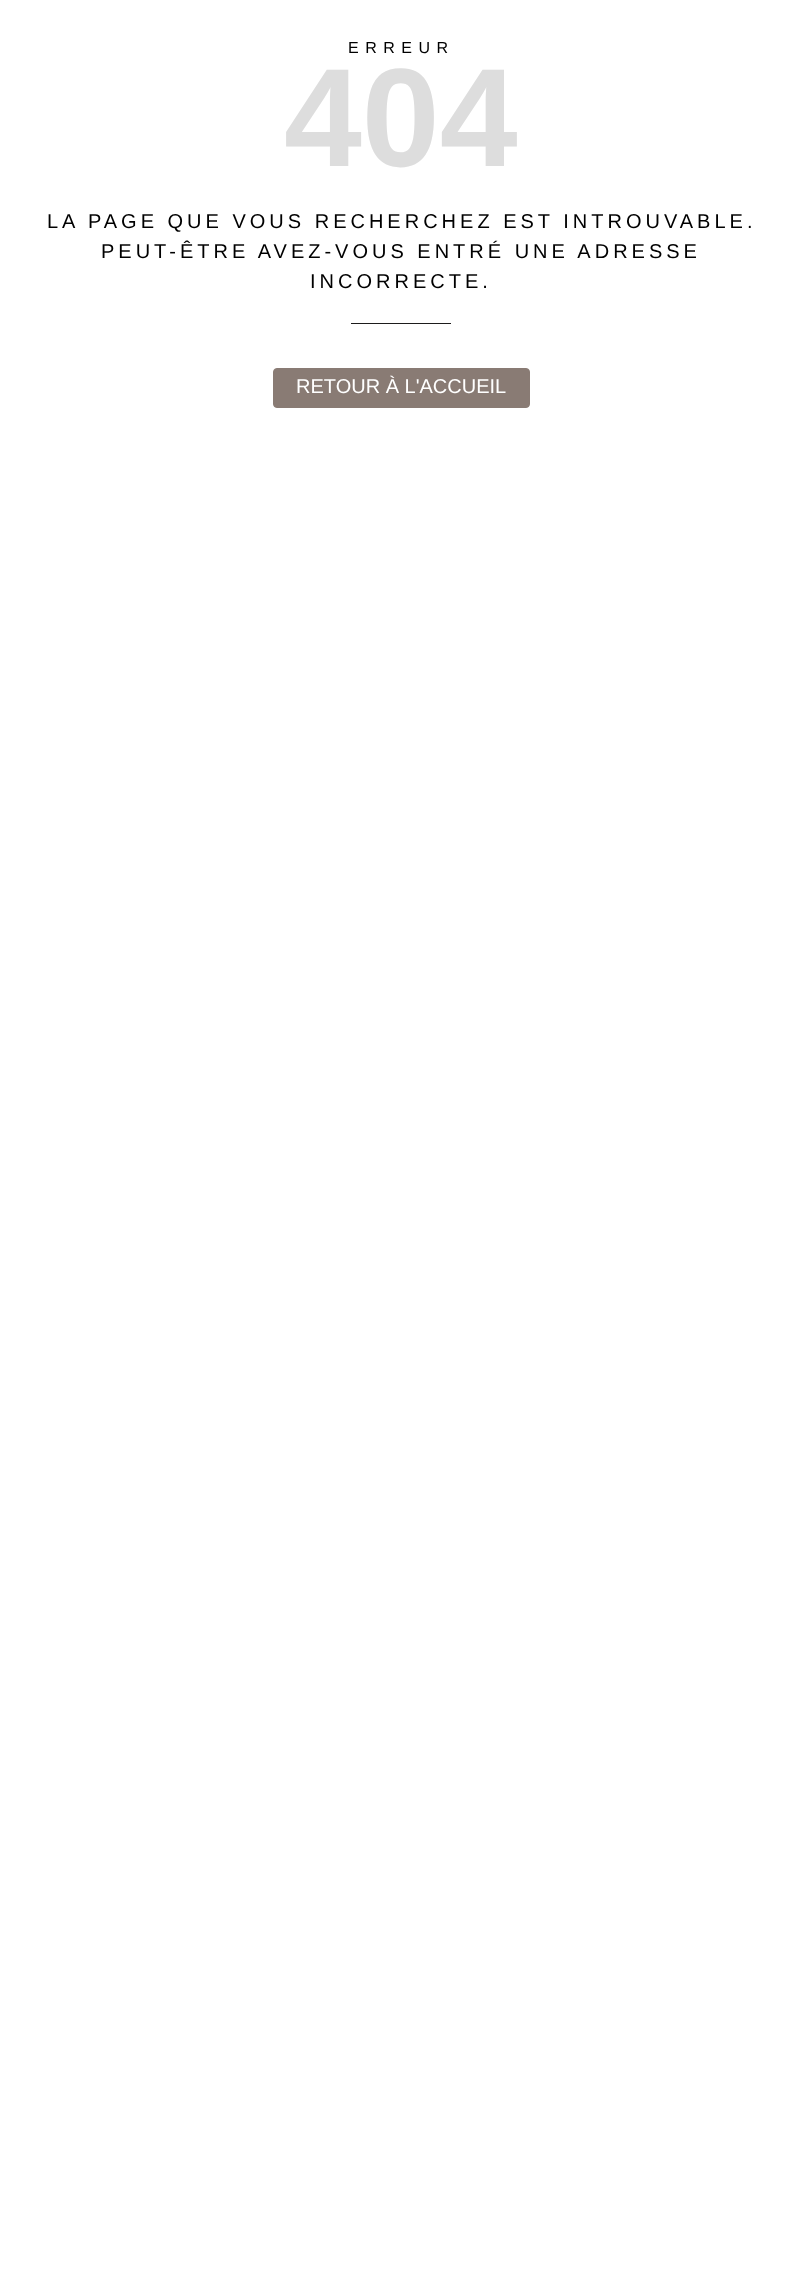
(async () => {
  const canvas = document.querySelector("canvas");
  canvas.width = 802;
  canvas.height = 2279;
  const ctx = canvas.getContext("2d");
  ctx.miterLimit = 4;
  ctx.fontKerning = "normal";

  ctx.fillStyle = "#ffffff";
  ctx.fillRect(0, 0, 802, 2279);
  ctx.fillStyle = "#1d1c1c";
  ctx.fillRect(351, 323, 100, 1);
  ctx.fillStyle = "#897b74";
  ctx.beginPath();
  ctx.roundRect(273.5, 368.5, 256, 39, 3.5);
  ctx.fill();
  ctx.strokeStyle = "#897b74";
  ctx.stroke();
  ctx.letterSpacing = "6.5px";
  ctx.font = "16px Liberation Sans";
  ctx.fillStyle = "#000000";
  ctx.fillText("ERREUR", 348, 53);
  ctx.letterSpacing = "0px";
  ctx.font = "bold 140px Liberation Sans";
  ctx.fillStyle = "#dddddd";
  ctx.fillText("404", 284, 166);
  ctx.letterSpacing = "4px";
  ctx.font = "20px Liberation Sans";
  ctx.fillStyle = "#000000";
  for (const [text, x, y] of [
    ["LA PAGE QUE VOUS RECHERCHEZ EST INTROUVABLE.", 47, 228],
    ["PEUT-ÊTRE AVEZ-VOUS ENTRÉ UNE ADRESSE", 101, 258],
    ["INCORRECTE.", 310, 288],
  ]) {
    ctx.fillText(text, x, y);
  }
  ctx.letterSpacing = "0px";
  ctx.fillStyle = "#ffffff";
  ctx.fillText("RETOUR À L'ACCUEIL", 296, 393);
})();
